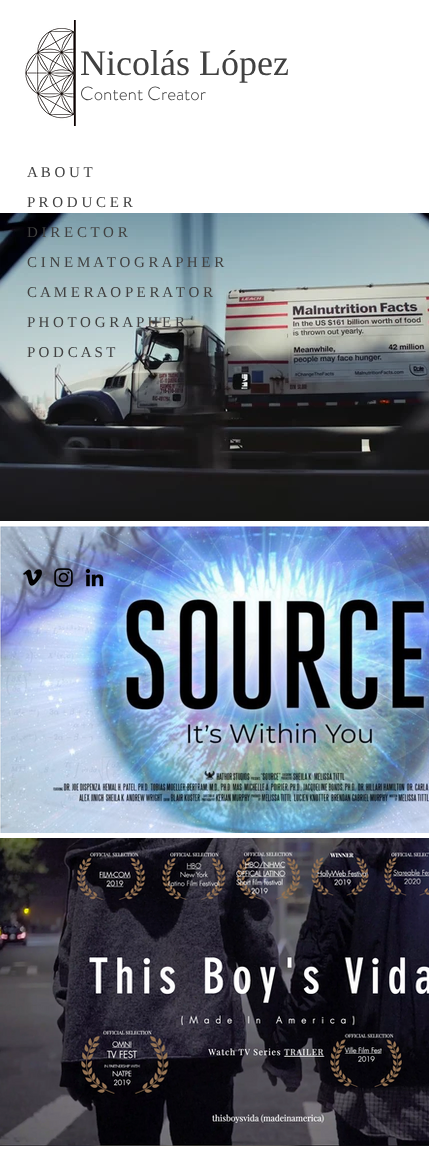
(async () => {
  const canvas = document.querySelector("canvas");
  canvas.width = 429;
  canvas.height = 1173;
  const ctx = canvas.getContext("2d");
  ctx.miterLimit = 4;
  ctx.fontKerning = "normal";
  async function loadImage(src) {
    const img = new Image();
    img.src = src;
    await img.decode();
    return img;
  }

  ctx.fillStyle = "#ffffff";
  ctx.fillRect(0, 0, 429, 1173);
  ctx.drawImage(await loadImage("img/1.png"), 25, 20, 51, 106);
  ctx.drawImage(await loadImage("img/2.png"), 0, 213, 429, 308);
  ctx.drawImage(await loadImage("img/3.png"), 0, 526, 429, 307);
  ctx.drawImage(await loadImage("img/4.png"), 0, 838, 429, 308);
  ctx.drawImage(await loadImage("img/5.png"), 23, 569, 20, 17);
  ctx.drawImage(await loadImage("img/6.png"), 54, 568, 19, 19);
  ctx.drawImage(await loadImage("img/7.png"), 85, 568, 19, 19);
  ctx.font = "36px Liberation Serif";
  ctx.fillStyle = "#414141";
  ctx.fillText("Nicolás López", 80, 75);
  ctx.font = "300 19px 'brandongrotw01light'";
  ctx.fillText("Content Creator", 80, 100);
  ctx.font = "15px Liberation Serif";
  for (const [text, x, y] of [
    ["A B O U T", 27, 177],
    ["P R O D U C E R", 27, 207],
    ["D I R E C T O R", 27, 237],
    ["C I N E M A T O G R A P H E R", 27, 267],
    ["C A M E R A O P E R A T O R", 27, 297],
    ["P H O T O G R A P H E R", 27, 327],
    ["P O D C A S T", 27, 357],
  ]) {
    ctx.fillText(text, x, y);
  }
})();
